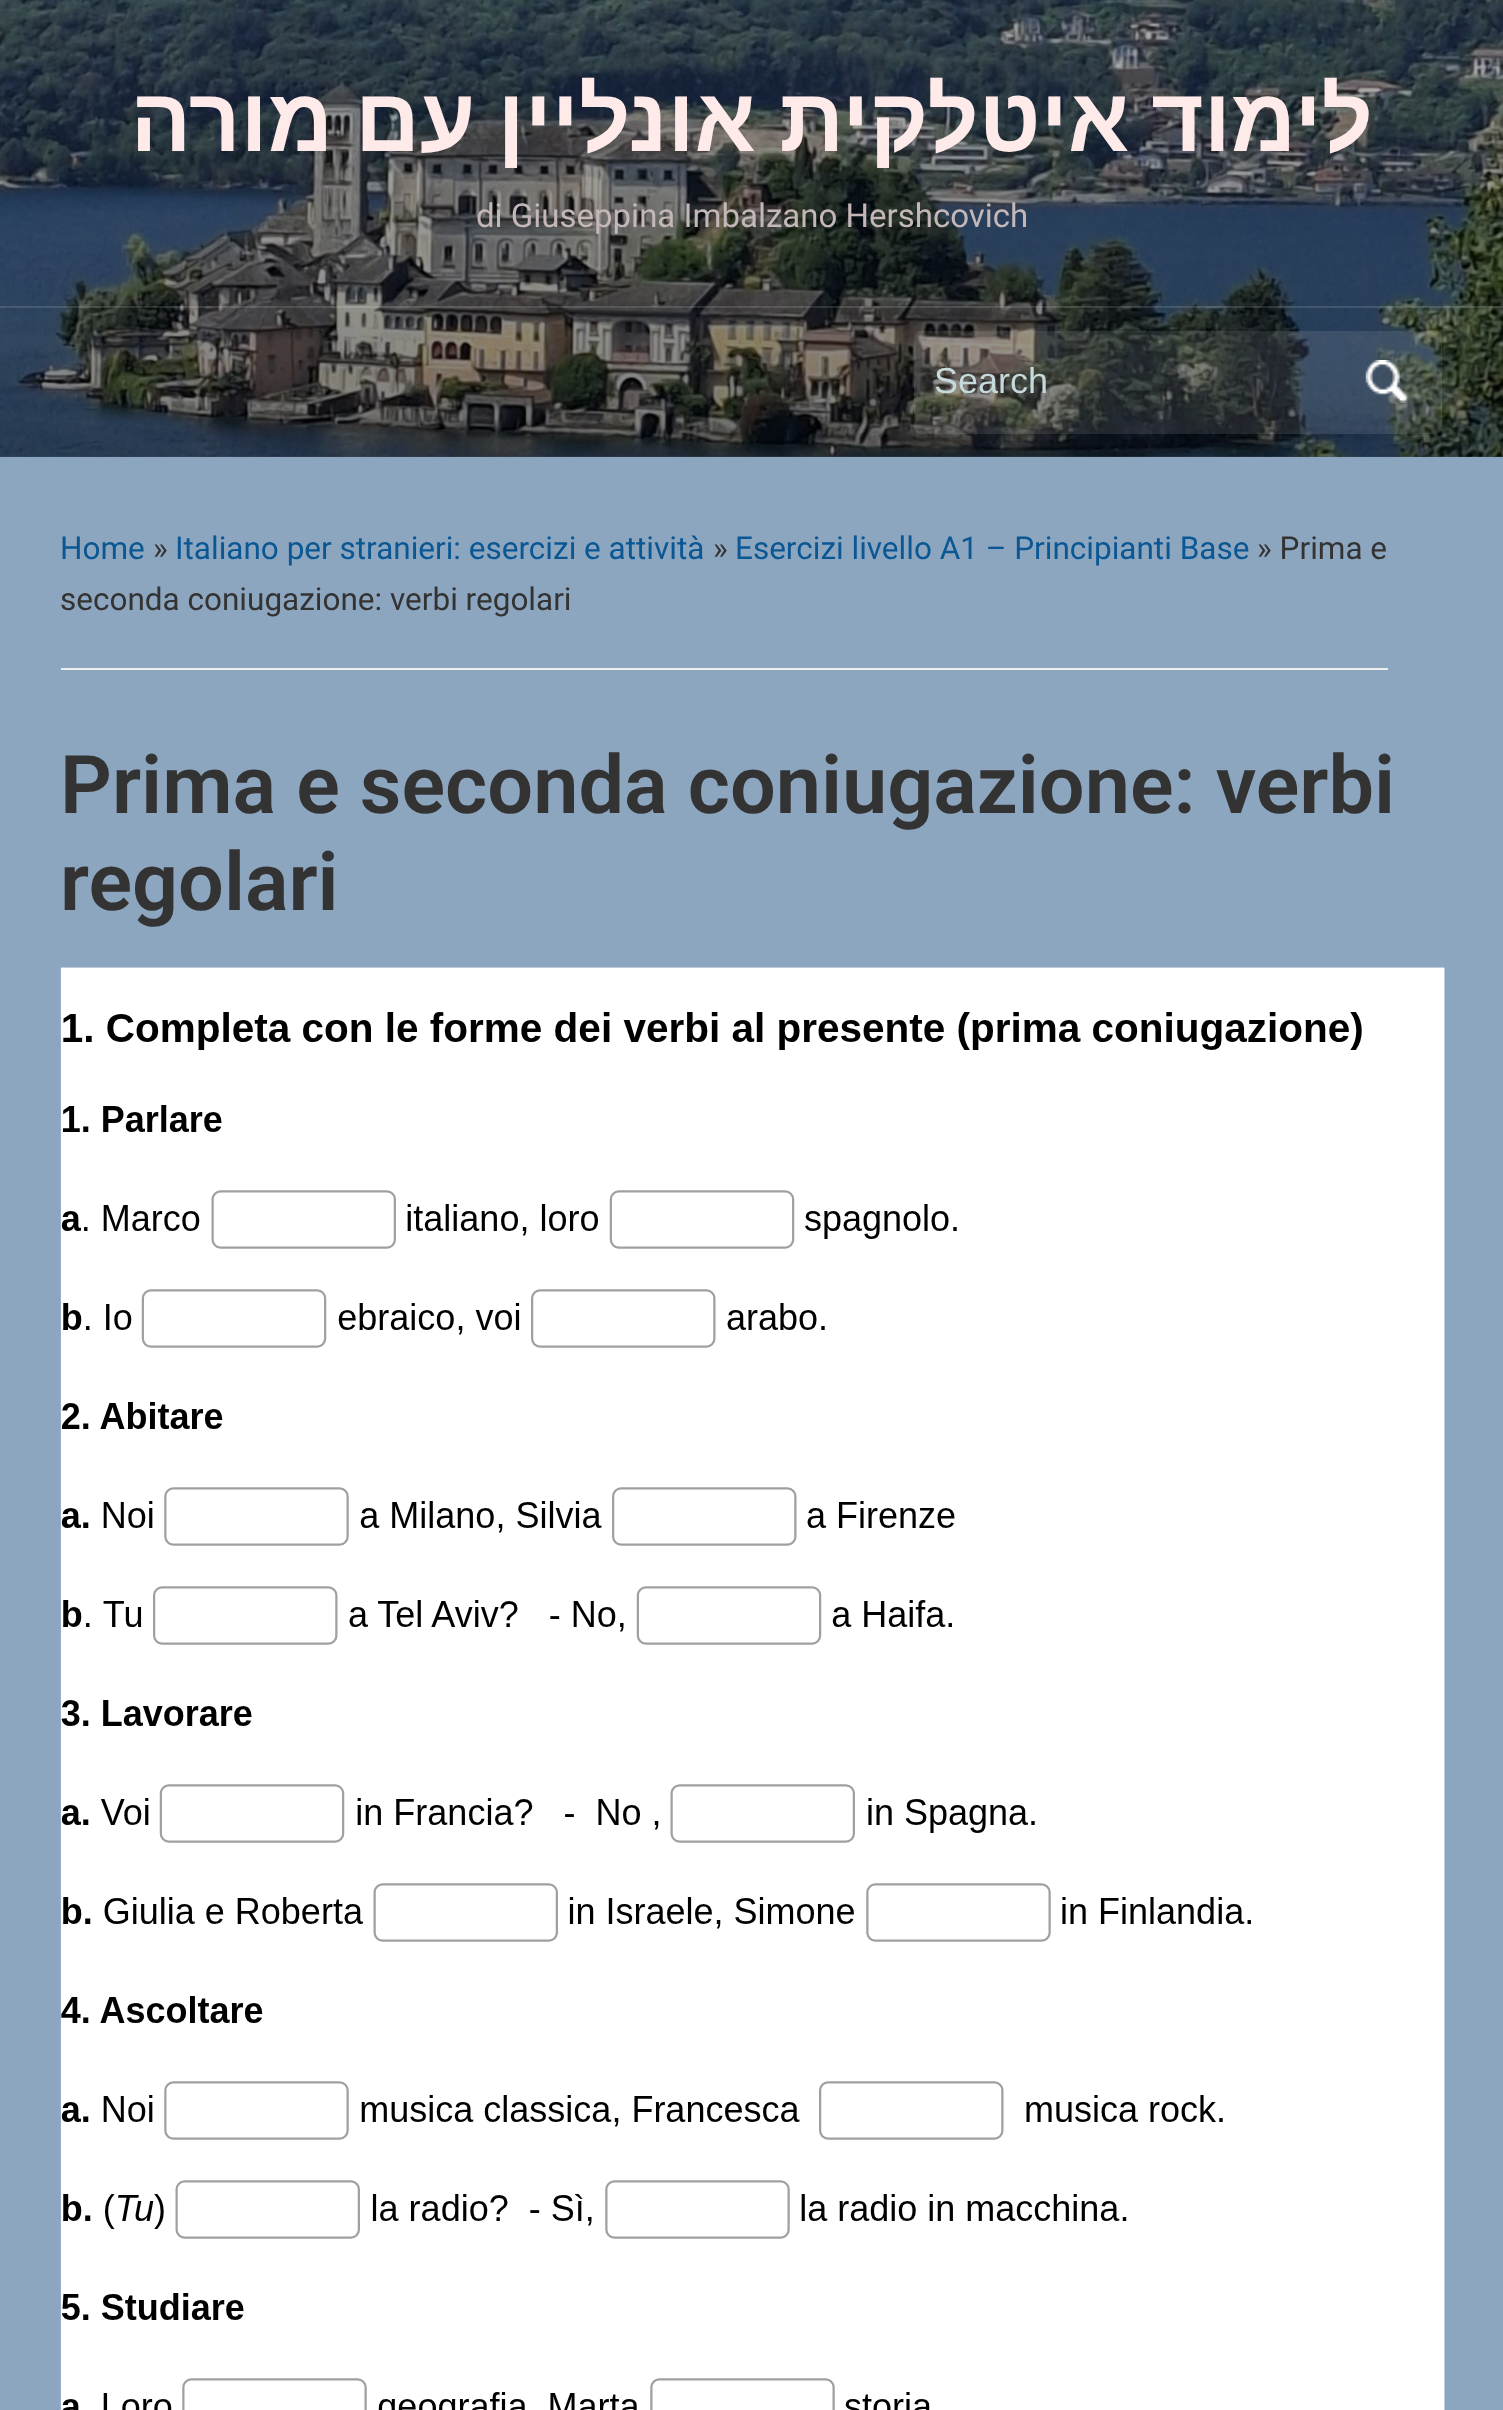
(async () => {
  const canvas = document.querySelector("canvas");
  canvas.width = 1503;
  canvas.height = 2410;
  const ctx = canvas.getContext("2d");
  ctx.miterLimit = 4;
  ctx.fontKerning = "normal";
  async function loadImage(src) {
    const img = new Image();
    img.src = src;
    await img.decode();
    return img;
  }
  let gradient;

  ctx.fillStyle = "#8da6bf";
  ctx.fillRect(0, 0, 1503, 2410);
  ctx.drawImage(await loadImage("img/1.png"), 0, 0, 1503, 457);
  gradient = ctx.createLinearGradient(752, 0, 752, 457);
  gradient.addColorStop(0, "rgba(0, 0, 0, 0.3)");
  gradient.addColorStop(1, "rgba(0, 0, 0, 0.5)");
  ctx.fillStyle = gradient;
  ctx.fillRect(0, 0, 1503, 457);
  ctx.fillStyle = "rgba(255, 255, 255, 0.13)";
  ctx.fillRect(0, 306, 1503, 2);
  ctx.fillStyle = "rgba(255, 255, 255, 0.1)";
  ctx.beginPath();
  ctx.roundRect(914, 331, 528, 103, 7);
  ctx.fill();
  ctx.drawImage(await loadImage("img/2.png"), 1365, 360, 44, 43);
  ctx.fillStyle = "#eeeeee";
  ctx.fillRect(61, 668, 1327, 2);
  ctx.drawImage(await loadImage("img/3.png"), 60, 967, 1385, 1443);
  ctx.wordSpacing = "-3px";
  ctx.direction = "rtl";
  ctx.font = "bold 90px Liberation Sans";
  ctx.fillStyle = "#ffeaea";
  ctx.fillText("אונליין עם מורה", 756, 151);
  ctx.fillText("לימוד איטלקית", 1373, 151);
  ctx.wordSpacing = "0px";
  ctx.direction = "ltr";
  ctx.font = "33px Roboto";
  ctx.fillStyle = "#c4b7b8";
  ctx.fillText("di Giuseppina Imbalzano Hershcovich", 476, 227);
  ctx.font = "36px Liberation Sans";
  ctx.fillStyle = "#c6d9db";
  ctx.fillText("Search", 934, 393);
  ctx.font = "31.5px Roboto";
  ctx.fillStyle = "#0a5794";
  ctx.fillText("Home", 60, 559);
  ctx.fillStyle = "#333333";
  ctx.fillText("»", 153, 559);
  ctx.fillStyle = "#0a5794";
  ctx.fillText("Italiano per stranieri: esercizi e attività", 175, 559);
  ctx.fillStyle = "#333333";
  ctx.fillText("»", 713, 559);
  ctx.fillStyle = "#0a5794";
  ctx.fillText("Esercizi livello A1 – Principianti Base", 735, 559);
  ctx.fillStyle = "#333333";
  ctx.fillText("» Prima e", 1257, 559);
  ctx.fillText("seconda coniugazione: verbi regolari", 60, 610);
  ctx.font = "600 81px Roboto";
  ctx.fillText("Prima e seconda coniugazione: verbi", 60, 813);
  ctx.fillText("regolari", 60, 910);
})();
